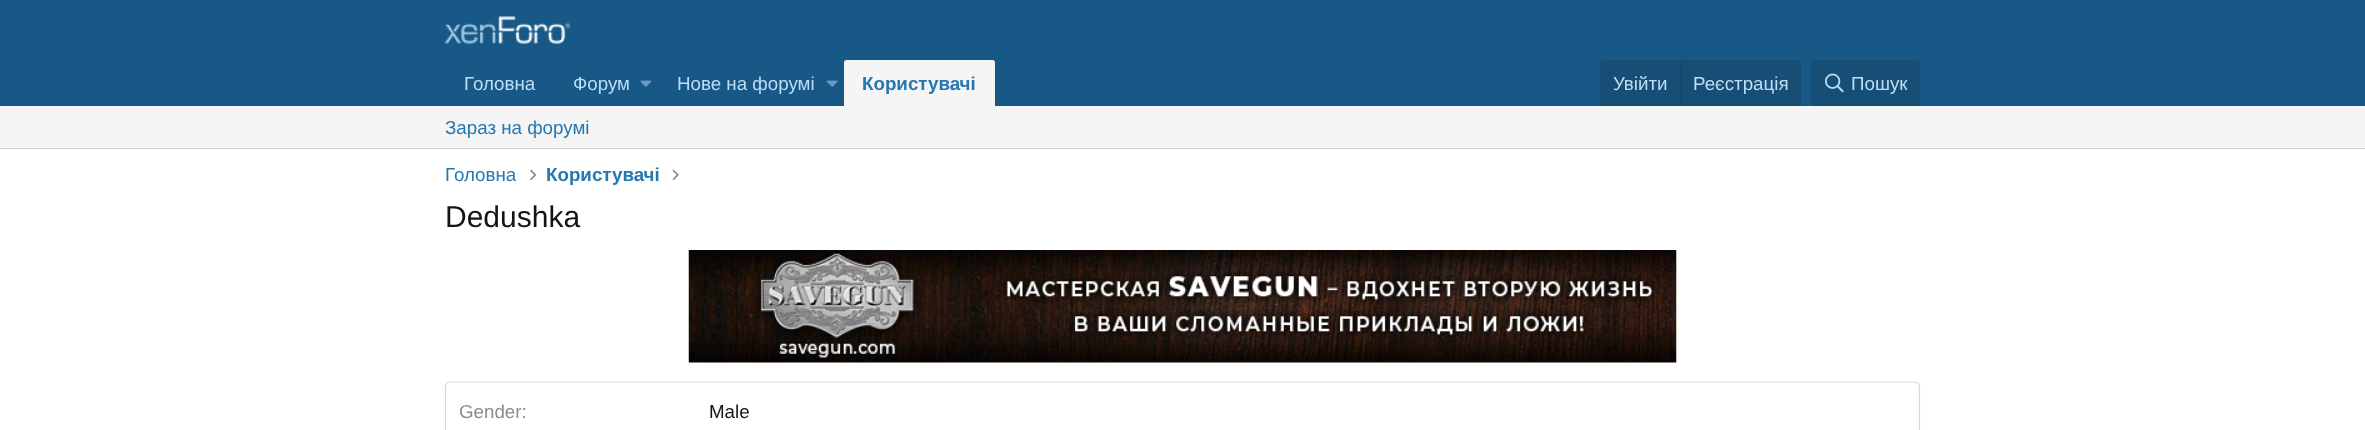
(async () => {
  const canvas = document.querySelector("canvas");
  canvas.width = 2365;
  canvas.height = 430;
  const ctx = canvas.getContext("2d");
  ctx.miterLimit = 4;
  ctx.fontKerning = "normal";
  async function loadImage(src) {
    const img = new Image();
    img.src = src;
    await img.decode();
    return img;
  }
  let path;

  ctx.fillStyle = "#ffffff";
  ctx.fillRect(0, 0, 2365, 430);
  ctx.fillStyle = "#185886";
  ctx.fillRect(0, 0, 2365, 106);
  ctx.drawImage(await loadImage("img/1.png"), 445, 16, 125, 28);
  ctx.drawImage(await loadImage("img/2.png"), 640, 80, 12, 7);
  ctx.drawImage(await loadImage("img/3.png"), 826, 80, 12, 7);
  ctx.fillStyle = "#f5f5f5";
  ctx.beginPath();
  ctx.roundRect(844, 60, 151, 46, [2.5, 2.5, 0, 0]);
  ctx.fill();
  ctx.fillStyle = "#174e75";
  ctx.beginPath();
  ctx.roundRect(1600, 60, 201, 46, [5, 5, 0, 0]);
  ctx.fill();
  ctx.fillStyle = "#174566";
  ctx.fillRect(1680, 60, 1, 46);
  ctx.fillStyle = "#174e75";
  ctx.beginPath();
  ctx.roundRect(1811, 60, 109, 46, [5, 5, 0, 0]);
  ctx.fill();
  ctx.drawImage(await loadImage("img/4.png"), 1825, 73, 19, 20);
  ctx.fillStyle = "#f5f5f5";
  ctx.fillRect(0, 106, 2365, 42);
  ctx.fillStyle = "#cbcbcb";
  ctx.fillRect(0, 148, 2365, 1);
  ctx.drawImage(await loadImage("img/5.png"), 530, 169, 7, 12);
  ctx.drawImage(await loadImage("img/6.png"), 672, 169, 7, 12);
  ctx.drawImage(await loadImage("img/7.png"), 688, 250, 989, 113);
  path = new Path2D("M447 383L450 382H1915L1918 383");
  ctx.strokeStyle = "#dfdfdf";
  ctx.lineWidth = 1.2;
  ctx.stroke(path);
  path = new Path2D("M1918 383L1919.5 386V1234L1918 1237");
  ctx.strokeStyle = "#d8d8d8";
  ctx.stroke(path);
  path = new Path2D("M447 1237L445.5 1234V386L447 383");
  ctx.stroke(path);
  ctx.font = "18.75px Liberation Sans";
  ctx.fillStyle = "#bcdef5";
  for (const [text, x, y] of [
    ["Головна", 464, 90],
    ["Форум", 573, 90],
    ["Нове на форумі", 677, 90],
  ]) {
    ctx.fillText(text, x, y);
  }
  ctx.font = "bold 18.75px Liberation Sans";
  ctx.fillStyle = "#2577b1";
  ctx.fillText("Користувачі", 862, 90);
  ctx.font = "18.75px Liberation Sans";
  ctx.fillStyle = "#bcdef5";
  for (const [text, x, y] of [
    ["Увійти", 1613, 90],
    ["Реєстрація", 1693, 90],
    ["Пошук", 1851, 90],
  ]) {
    ctx.fillText(text, x, y);
  }
  ctx.fillStyle = "#2577b1";
  ctx.fillText("Зараз на форумі", 445, 134);
  ctx.fillText("Головна", 445, 181);
  ctx.font = "bold 18.75px Liberation Sans";
  ctx.fillText("Користувачі", 546, 181);
  ctx.font = "30px Liberation Sans";
  ctx.fillStyle = "#141414";
  ctx.fillText("Dedushka", 445, 227);
  ctx.font = "18.75px Liberation Sans";
  ctx.fillStyle = "#8c8c8c";
  ctx.fillText("Gender:", 459, 418);
  ctx.fillStyle = "#141414";
  ctx.fillText("Male", 709, 418);
})();
